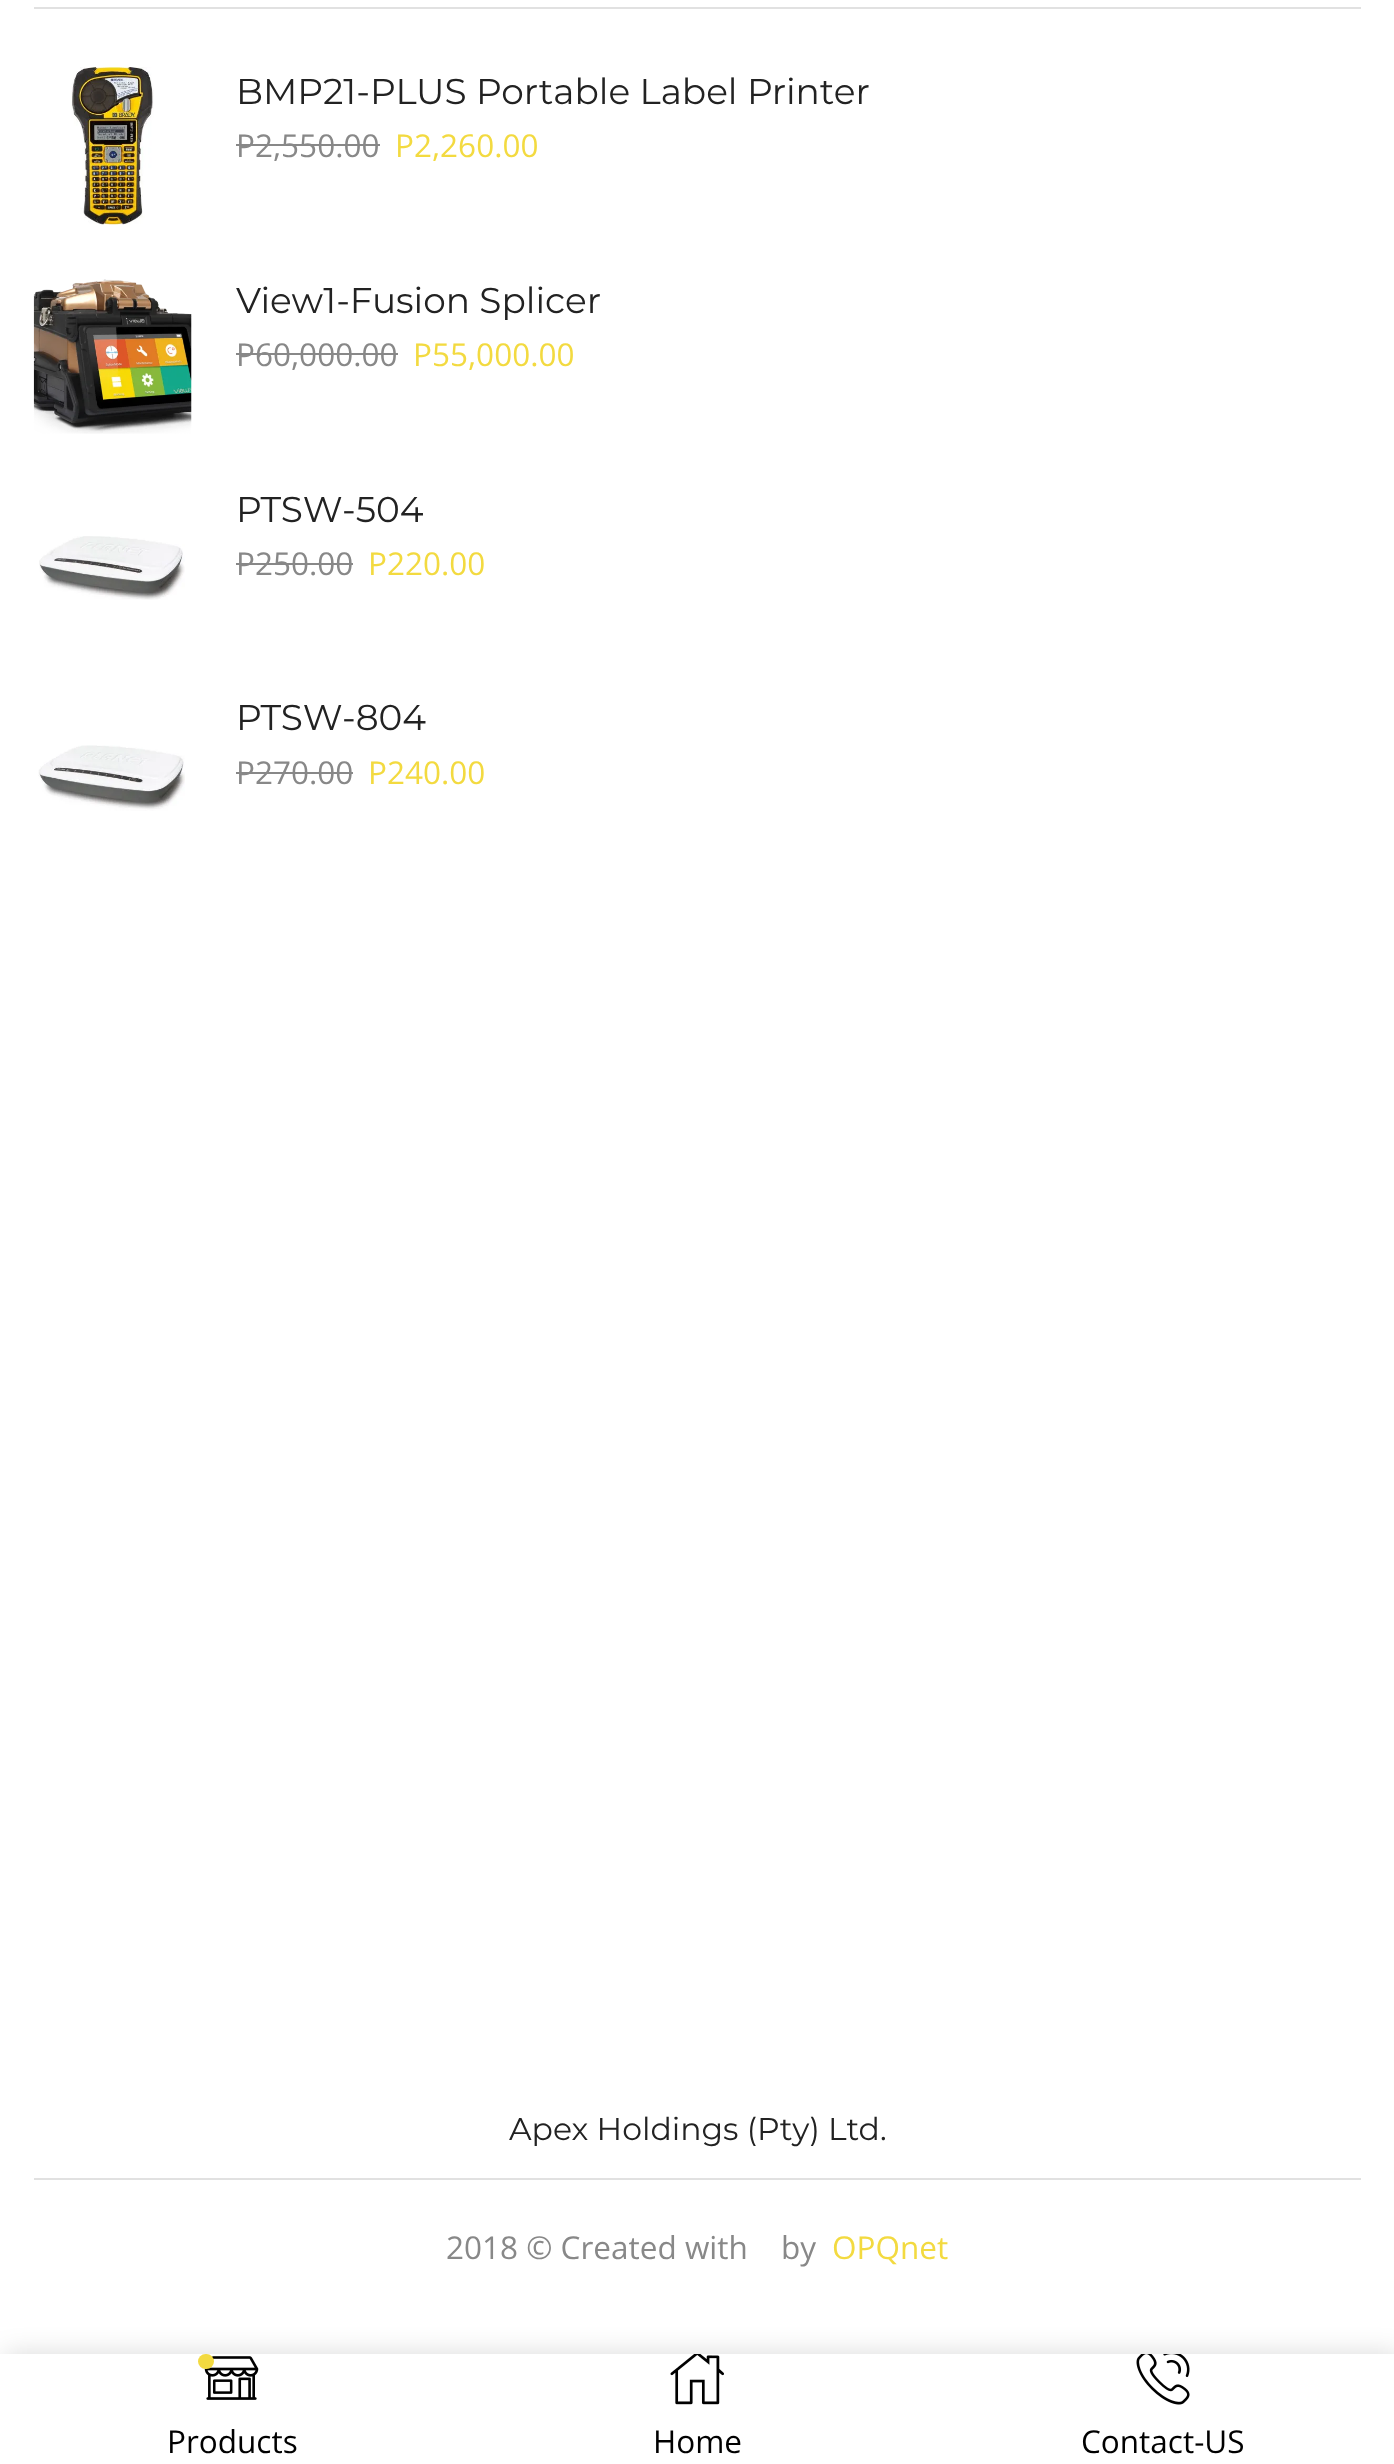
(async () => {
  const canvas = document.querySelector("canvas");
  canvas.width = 1394;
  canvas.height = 2464;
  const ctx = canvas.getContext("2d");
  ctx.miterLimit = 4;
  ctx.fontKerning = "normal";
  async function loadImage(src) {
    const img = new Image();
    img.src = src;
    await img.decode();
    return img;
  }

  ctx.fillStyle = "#ffffff";
  ctx.fillRect(0, 0, 1394, 2464);
  ctx.fillStyle = "#e1e1e1";
  ctx.fillRect(34, 7, 1327, 2);
  ctx.drawImage(await loadImage("img/1.png"), 71, 67, 83, 158);
  ctx.fillStyle = "#888888";
  ctx.fillRect(236, 144, 144, 2);
  ctx.drawImage(await loadImage("img/2.png"), 33, 279, 159, 155);
  ctx.fillRect(236, 353, 162, 2);
  ctx.drawImage(await loadImage("img/3.png"), 39, 536, 146, 64);
  ctx.fillRect(236, 563, 117, 2);
  ctx.drawImage(await loadImage("img/4.png"), 38, 745, 147, 66);
  ctx.fillRect(236, 772, 117, 2);
  ctx.fillStyle = "#e1e1e1";
  ctx.fillRect(34, 2178, 1327, 2);
  ctx.fillStyle = "rgba(0, 0, 0, 0.15)";
  ctx.filter = "blur(13.5px)";
  ctx.beginPath();
  ctx.rect(5, 2354, 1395, 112);
  ctx.fill();
  ctx.filter = "none";
  ctx.fillStyle = "#ffffff";
  ctx.fillRect(0, 2354, 1394, 110);
  ctx.drawImage(await loadImage("img/5.png"), 204, 2356, 55, 44);
  ctx.fillStyle = "#f3da40";
  ctx.beginPath();
  ctx.roundRect(198, 2354, 16, 15, 7.5);
  ctx.fill();
  ctx.drawImage(await loadImage("img/6.png"), 670, 2354, 54, 51);
  ctx.drawImage(await loadImage("img/7.png"), 1136, 2354, 54, 51);
  ctx.font = "100 35.9px Montserrat";
  ctx.fillStyle = "#222222";
  ctx.fillText("BMP21-PLUS Portable Label Printer", 236, 104);
  ctx.font = "31.5px Open Sans";
  ctx.fillStyle = "#888888";
  ctx.fillText("P2,550.00", 236, 157);
  ctx.fillStyle = "#f3da40";
  ctx.fillText("P2,260.00", 395, 157);
  ctx.font = "100 35.9px Montserrat";
  ctx.fillStyle = "#222222";
  ctx.fillText("View1-Fusion Splicer", 236, 313);
  ctx.font = "31.5px Open Sans";
  ctx.fillStyle = "#888888";
  ctx.fillText("P60,000.00", 236, 366);
  ctx.fillStyle = "#f3da40";
  ctx.fillText("P55,000.00", 413, 366);
  ctx.font = "100 35.9px Montserrat";
  ctx.fillStyle = "#222222";
  ctx.fillText("PTSW-504", 236, 522);
  ctx.font = "31.5px Open Sans";
  ctx.fillStyle = "#888888";
  ctx.fillText("P250.00", 236, 575);
  ctx.fillStyle = "#f3da40";
  ctx.fillText("P220.00", 368, 575);
  ctx.font = "100 35.9px Montserrat";
  ctx.fillStyle = "#222222";
  ctx.fillText("PTSW-804", 236, 730);
  ctx.font = "31.5px Open Sans";
  ctx.fillStyle = "#888888";
  ctx.fillText("P270.00", 236, 784);
  ctx.fillStyle = "#f3da40";
  ctx.fillText("P240.00", 368, 784);
  ctx.font = "100 31.5px Montserrat";
  ctx.fillStyle = "#222222";
  ctx.fillText("Apex Holdings (Pty) Ltd.", 509, 2140);
  ctx.font = "31.5px Open Sans";
  ctx.fillStyle = "#888888";
  ctx.fillText("2018 © Created with", 446, 2259);
  ctx.fillText("by", 781, 2259);
  ctx.fillStyle = "#f3da40";
  ctx.fillText("OPQnet", 832, 2259);
  ctx.fillStyle = "#000000";
  for (const [text, x, y] of [
    ["Products", 167, 2453],
    ["Home", 653, 2453],
    ["Contact-US", 1081, 2453],
  ]) {
    ctx.fillText(text, x, y);
  }
})();
